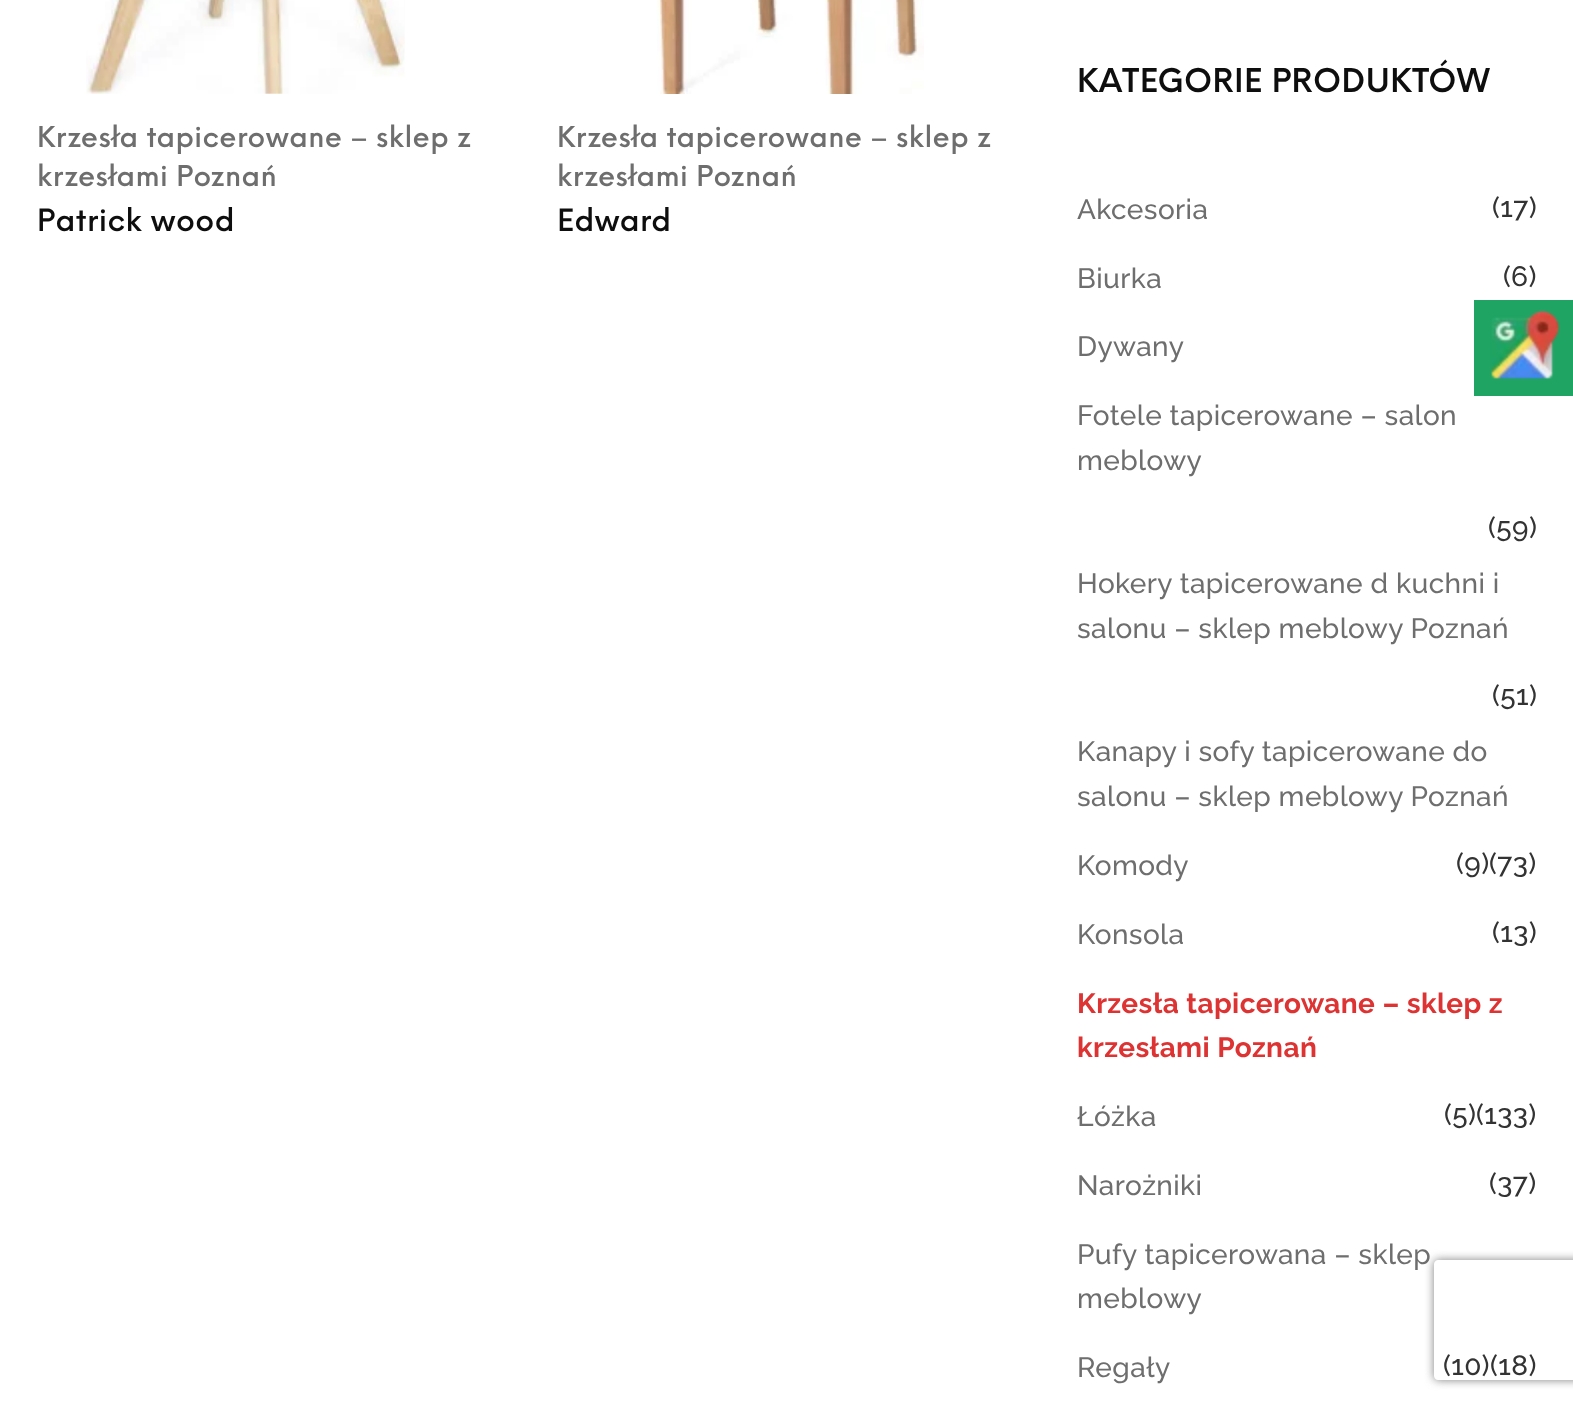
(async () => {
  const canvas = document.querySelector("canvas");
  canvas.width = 1573;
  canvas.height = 1407;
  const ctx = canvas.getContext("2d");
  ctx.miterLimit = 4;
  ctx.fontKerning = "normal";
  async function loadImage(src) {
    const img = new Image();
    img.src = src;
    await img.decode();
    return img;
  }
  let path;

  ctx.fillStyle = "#ffffff";
  ctx.fillRect(0, 0, 1573, 1407);
  ctx.drawImage(await loadImage("img/1.png"), 86, 0, 319, 94);
  ctx.drawImage(await loadImage("img/2.png"), 657, 0, 267, 94);
  ctx.fillStyle = "#20a464";
  ctx.fillRect(1474, 300, 99, 96);
  ctx.drawImage(await loadImage("img/3.png"), 1490, 310, 70, 70);
  ctx.save();
  path = new Path2D("M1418 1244H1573V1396H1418ZM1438 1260H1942C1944 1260 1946 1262 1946 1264V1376C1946 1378 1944 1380 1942 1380H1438C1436 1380 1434 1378 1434 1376V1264C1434 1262 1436 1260 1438 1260Z");
  ctx.clip(path, "evenodd");
  ctx.fillStyle = "#808080";
  ctx.filter = "blur(5px)";
  ctx.beginPath();
  ctx.roundRect(1434, 1260, 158, 120, 4);
  ctx.fill();
  ctx.filter = "none";
  ctx.restore();
  ctx.letterSpacing = "0.4px";
  ctx.font = "500 28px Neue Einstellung";
  ctx.fillStyle = "#6e6e6e";
  ctx.fillText("Krzesła tapicerowane – sklep z", 37, 147);
  ctx.fillText("krzesłami Poznań", 37, 186);
  ctx.font = "500 30px Neue Einstellung";
  ctx.fillStyle = "#0e0e0e";
  ctx.fillText("Patrick wood", 37, 231);
  ctx.font = "500 28px Neue Einstellung";
  ctx.fillStyle = "#6e6e6e";
  ctx.fillText("Krzesła tapicerowane – sklep z", 557, 147);
  ctx.fillText("krzesłami Poznań", 557, 186);
  ctx.font = "500 30px Neue Einstellung";
  ctx.fillStyle = "#0e0e0e";
  ctx.fillText("Edward", 557, 231);
  ctx.font = "600 32px Neue Einstellung";
  ctx.fillText("KATEGORIE PRODUKTÓW", 1077, 92);
  ctx.font = "500 28px Raleway";
  ctx.fillStyle = "#6e6e6e";
  ctx.fillText("Akcesoria", 1077, 219);
  ctx.fillStyle = "#333333";
  ctx.fillText("(17)", 1492, 217);
  ctx.fillStyle = "#6e6e6e";
  ctx.fillText("Biurka", 1077, 288);
  ctx.fillStyle = "#333333";
  ctx.fillText("(6)", 1503, 286);
  ctx.fillStyle = "#6e6e6e";
  for (const [text, x, y] of [
    ["Dywany", 1077, 356],
    ["Fotele tapicerowane – salon", 1077, 425],
    ["meblowy", 1077, 470],
  ]) {
    ctx.fillText(text, x, y);
  }
  ctx.fillStyle = "#333333";
  ctx.fillText("(59)", 1488, 537);
  ctx.fillStyle = "#6e6e6e";
  ctx.fillText("Hokery tapicerowane d kuchni i", 1077, 593);
  ctx.fillText("salonu – sklep meblowy Poznań", 1077, 638);
  ctx.fillStyle = "#333333";
  ctx.fillText("(51)", 1492, 705);
  ctx.fillStyle = "#6e6e6e";
  ctx.fillText("Kanapy i sofy tapicerowane do", 1077, 761);
  ctx.fillText("salonu – sklep meblowy Poznań", 1077, 806);
  ctx.fillStyle = "#333333";
  ctx.fillText("(73)", 1489, 873);
  ctx.fillStyle = "#6e6e6e";
  ctx.fillText("Komody", 1077, 875);
  ctx.fillStyle = "#333333";
  ctx.fillText("(9)", 1456, 873);
  ctx.fillStyle = "#6e6e6e";
  ctx.fillText("Konsola", 1077, 944);
  ctx.fillStyle = "#333333";
  ctx.fillText("(13)", 1492, 942);
  ctx.font = "bold 28px Raleway";
  ctx.fillStyle = "#dd3333";
  ctx.fillText("Krzesła tapicerowane – sklep z", 1077, 1013);
  ctx.fillText("krzesłami Poznań", 1077, 1057);
  ctx.font = "500 28px Raleway";
  ctx.fillStyle = "#333333";
  ctx.fillText("(133)", 1476, 1124);
  ctx.fillStyle = "#6e6e6e";
  ctx.fillText("Łóżka", 1077, 1126);
  ctx.fillStyle = "#333333";
  ctx.fillText("(5)", 1444, 1124);
  ctx.fillStyle = "#6e6e6e";
  ctx.fillText("Narożniki", 1077, 1195);
  ctx.fillStyle = "#333333";
  ctx.fillText("(37)", 1489, 1193);
  ctx.fillStyle = "#6e6e6e";
  ctx.fillText("Pufy tapicerowana – sklep", 1077, 1264);
  ctx.fillText("meblowy", 1077, 1308);
  ctx.fillStyle = "#333333";
  ctx.fillText("(18)", 1490, 1375);
  ctx.fillStyle = "#6e6e6e";
  ctx.fillText("Regały", 1077, 1377);
  ctx.fillStyle = "#333333";
  ctx.fillText("(10)", 1443, 1375);
})();
